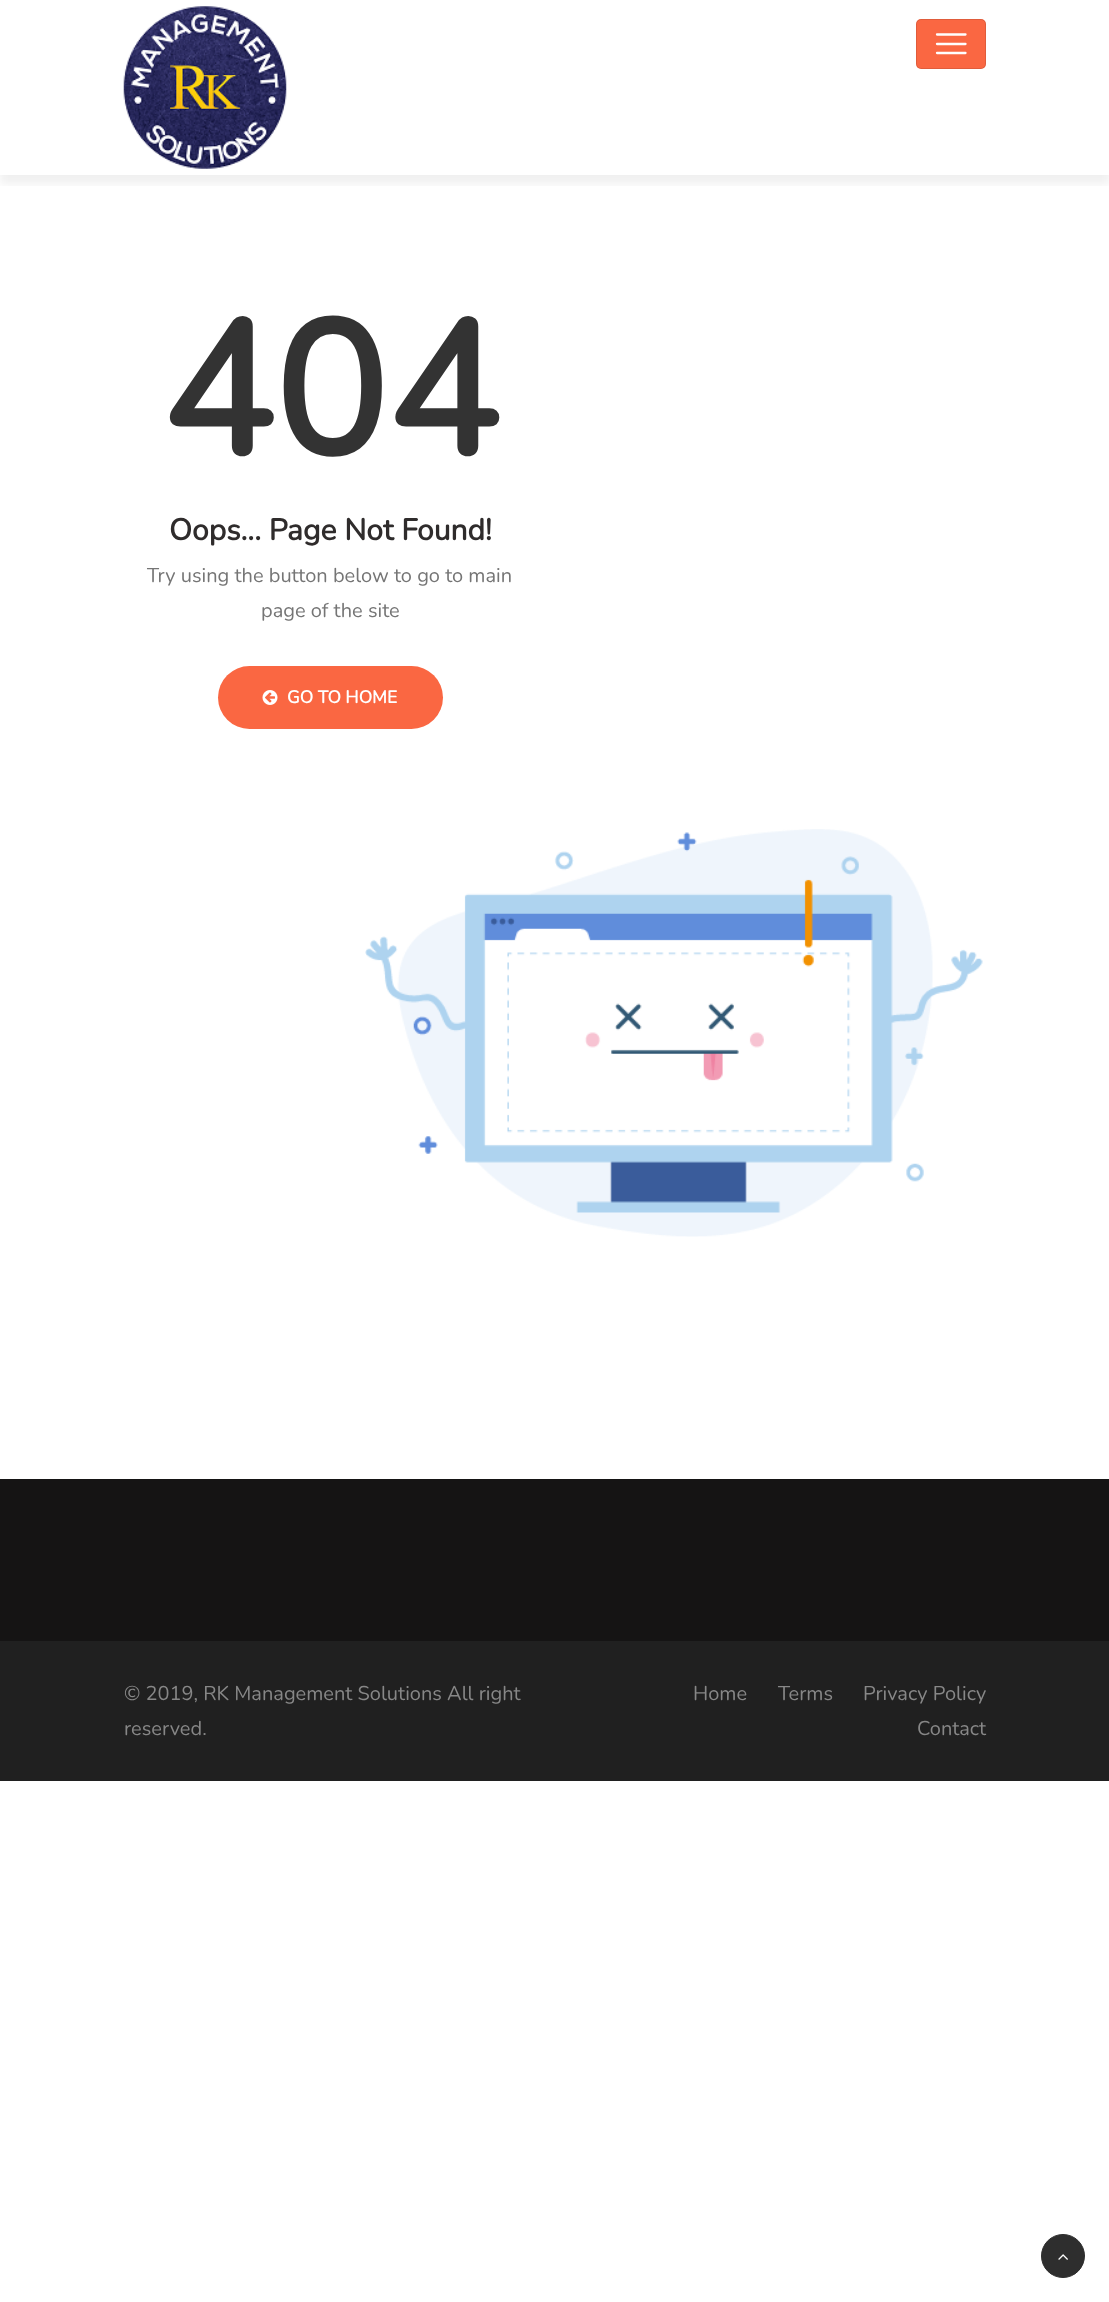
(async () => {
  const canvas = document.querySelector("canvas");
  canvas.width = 1109;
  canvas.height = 2302;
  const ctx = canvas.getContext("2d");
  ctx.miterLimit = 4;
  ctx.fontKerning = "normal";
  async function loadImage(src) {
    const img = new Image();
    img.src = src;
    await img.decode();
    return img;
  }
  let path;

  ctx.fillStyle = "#ffffff";
  ctx.fillRect(0, 0, 1109, 2302);
  ctx.save();
  ctx.beginPath();
  ctx.rect(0, 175, 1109, 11);
  ctx.clip();
  ctx.fillStyle = "rgba(0, 0, 0, 0.06)";
  ctx.filter = "blur(5px)";
  ctx.beginPath();
  ctx.rect(0, 9, 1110, 175);
  ctx.fill();
  ctx.filter = "none";
  ctx.restore();
  ctx.drawImage(await loadImage("img/1.png"), 123, 6, 164, 163);
  ctx.fillStyle = "#fa6742";
  ctx.beginPath();
  ctx.roundRect(916, 19, 70, 50, 5);
  ctx.fill();
  ctx.beginPath();
  ctx.roundRect(916.5, 19.5, 69, 49, 4.5);
  ctx.strokeStyle = "rgba(0, 0, 0, 0.1)";
  ctx.stroke();
  path = new Path2D("M937 34.5H965.5M937 44H965.5M937 53H965.5");
  ctx.strokeStyle = "#ffffff";
  ctx.lineWidth = 2.3;
  ctx.lineCap = "round";
  ctx.stroke(path);
  ctx.beginPath();
  ctx.roundRect(218, 666, 225, 63, 31.5);
  ctx.fill();
  ctx.drawImage(await loadImage("img/2.png"), 262, 690, 16, 15);
  ctx.drawImage(await loadImage("img/3.png"), 365, 829, 618, 408);
  ctx.fillStyle = "#151414";
  ctx.fillRect(0, 1479, 1109, 162);
  ctx.fillStyle = "#202020";
  ctx.fillRect(0, 1641, 1109, 140);
  ctx.fillStyle = "#2e2e2e";
  ctx.beginPath();
  ctx.arc(1063, 2256, 21.5, 0, Math.PI * 2);
  ctx.fill();
  ctx.strokeStyle = "#2e2e2e";
  ctx.lineWidth = 1;
  ctx.stroke();
  ctx.drawImage(await loadImage("img/4.png"), 1058, 2254, 10, 6);
  ctx.font = "bold 188px Nunito";
  ctx.fillStyle = "#333333";
  ctx.fillText("404", 161, 455);
  ctx.font = "bold 30px Nunito";
  ctx.fillStyle = "#2f2c2c";
  ctx.fillText("Oops... Page Not Found!", 169, 540);
  ctx.font = "200 20px Nunito";
  ctx.fillStyle = "#757575";
  ctx.fillText("Try using the button below to go to main", 147, 582);
  ctx.fillText("page of the site", 261, 617);
  ctx.font = "bold 17.5px Nunito";
  ctx.fillStyle = "#ffffff";
  ctx.fillText("GO TO HOME", 287, 703);
  ctx.font = "200 20px Nunito";
  ctx.fillStyle = "#878787";
  for (const [text, x, y] of [
    ["© 2019, RK Management Solutions All right", 124, 1700],
    ["reserved.", 124, 1735],
    ["Home", 693, 1700],
    ["Terms", 778, 1700],
    ["Privacy Policy", 863, 1700],
    ["Contact", 917, 1735],
  ]) {
    ctx.fillText(text, x, y);
  }
})();
